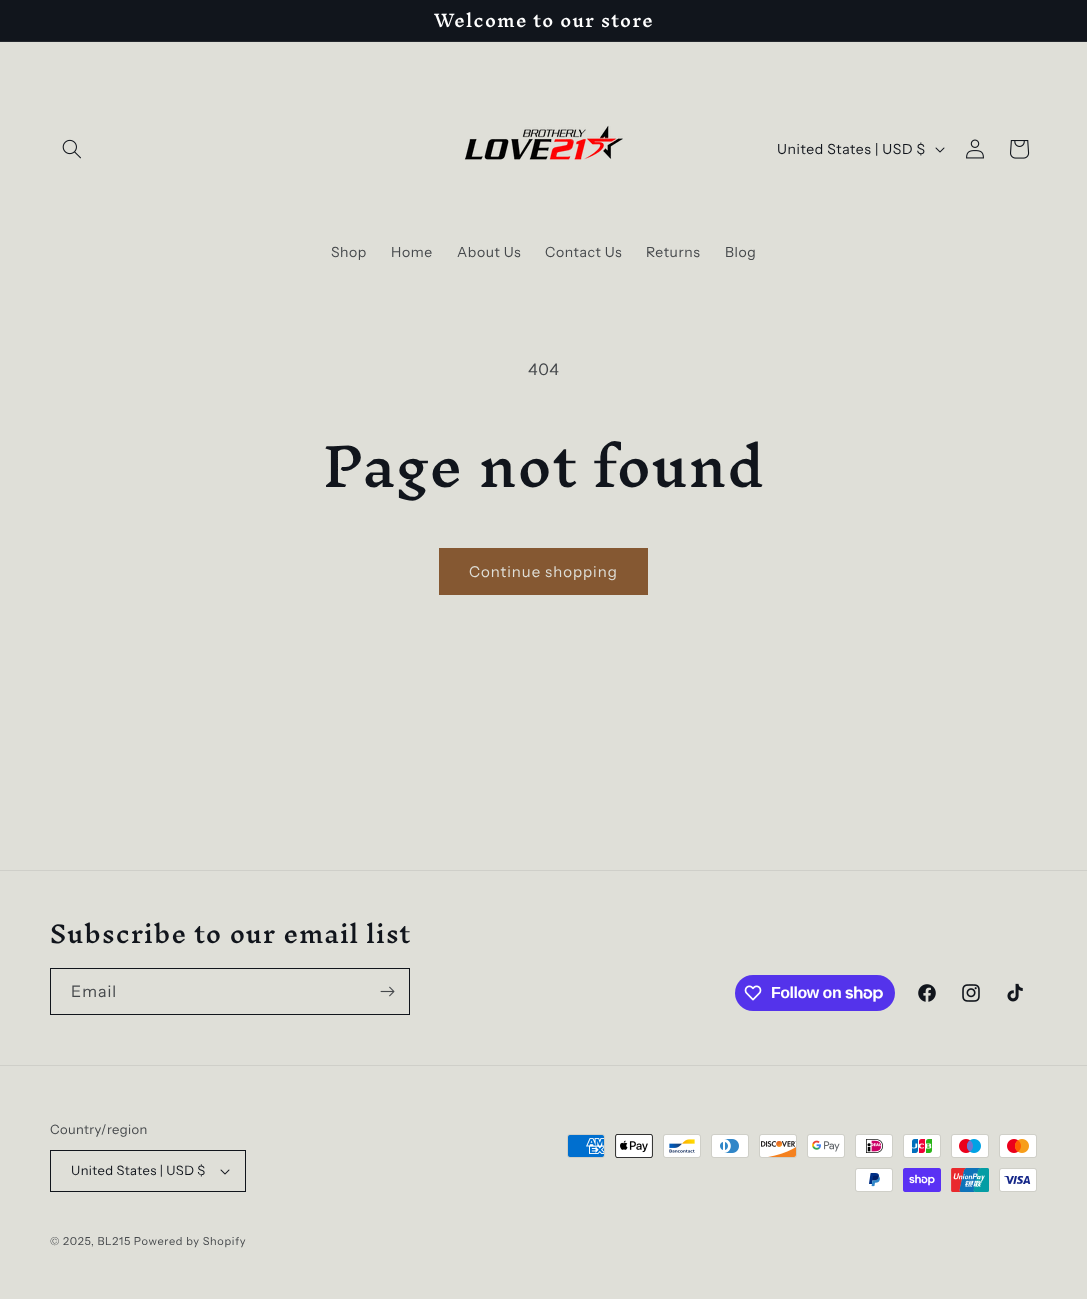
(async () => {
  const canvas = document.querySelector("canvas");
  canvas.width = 1087;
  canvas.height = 1299;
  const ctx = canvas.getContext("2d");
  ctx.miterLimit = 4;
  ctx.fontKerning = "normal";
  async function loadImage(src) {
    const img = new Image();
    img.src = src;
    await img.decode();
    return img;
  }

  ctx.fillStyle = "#dfdfd8";
  ctx.fillRect(0, 0, 1087, 1299);
  ctx.fillStyle = "#11151c";
  ctx.fillRect(0, 0, 1087, 41);
  ctx.fillStyle = "#24282e";
  ctx.fillRect(0, 41, 1087, 1);
  ctx.drawImage(await loadImage("img/1.png"), 62, 139, 19, 20);
  ctx.drawImage(await loadImage("img/2.png"), 464, 125, 159, 35);
  ctx.drawImage(await loadImage("img/3.png"), 935, 147, 10, 6);
  ctx.drawImage(await loadImage("img/4.png"), 966, 139, 18, 20);
  ctx.drawImage(await loadImage("img/5.png"), 1010, 140, 20, 19);
  ctx.fillStyle = "#855832";
  ctx.fillRect(439, 548, 209, 47);
  ctx.fillStyle = "#cfcfc9";
  ctx.fillRect(0, 870, 1087, 1);
  ctx.strokeStyle = "#11151c";
  ctx.strokeRect(50.5, 968.5, 359, 46);
  ctx.drawImage(await loadImage("img/6.png"), 380, 986, 15, 11);
  ctx.fillStyle = "#5433eb";
  ctx.beginPath();
  ctx.roundRect(735, 975, 160, 36, 18);
  ctx.fill();
  ctx.drawImage(await loadImage("img/7.png"), 744, 985, 18, 16);
  ctx.drawImage(await loadImage("img/8.png"), 845, 986, 38, 16);
  ctx.drawImage(await loadImage("img/9.png"), 918, 984, 18, 18);
  ctx.drawImage(await loadImage("img/10.png"), 962, 984, 18, 18);
  ctx.drawImage(await loadImage("img/11.png"), 1007, 983, 16, 19);
  ctx.fillStyle = "#cfcfc9";
  ctx.fillRect(0, 1065, 1087, 1);
  ctx.drawImage(await loadImage("img/3.png"), 220, 1169, 10, 6);
  ctx.strokeRect(50.5, 1150.5, 195, 41);
  ctx.drawImage(await loadImage("img/12.png"), 567, 1134, 38, 24);
  ctx.drawImage(await loadImage("img/13.png"), 615, 1134, 38, 24);
  ctx.drawImage(await loadImage("img/14.png"), 663, 1134, 38, 24);
  ctx.drawImage(await loadImage("img/15.png"), 711, 1134, 38, 24);
  ctx.drawImage(await loadImage("img/16.png"), 759, 1134, 38, 24);
  ctx.drawImage(await loadImage("img/17.png"), 807, 1134, 38, 24);
  ctx.drawImage(await loadImage("img/18.png"), 855, 1134, 38, 24);
  ctx.drawImage(await loadImage("img/19.png"), 903, 1134, 38, 24);
  ctx.drawImage(await loadImage("img/20.png"), 951, 1134, 38, 24);
  ctx.drawImage(await loadImage("img/21.png"), 999, 1134, 38, 24);
  ctx.drawImage(await loadImage("img/22.png"), 855, 1168, 38, 24);
  ctx.drawImage(await loadImage("img/23.png"), 903, 1168, 38, 24);
  ctx.drawImage(await loadImage("img/24.png"), 951, 1168, 38, 24);
  ctx.drawImage(await loadImage("img/25.png"), 999, 1168, 38, 24);
  ctx.letterSpacing = "1px";
  ctx.font = "500 16.9px Inknut Antiqua";
  ctx.fillStyle = "#ffffff";
  ctx.fillText("Welcome to our store", 434, 27);
  ctx.letterSpacing = "0.6px";
  ctx.font = "14px Instrument Sans";
  ctx.fillStyle = "#11151c";
  ctx.fillText("United States | USD $", 777, 154);
  ctx.fillStyle = "#45484b";
  for (const [text, x, y] of [
    ["Shop", 331, 257],
    ["Home", 391, 257],
    ["About Us", 457, 257],
    ["Contact Us", 545, 257],
    ["Returns", 646, 257],
    ["Blog", 725, 257],
  ]) {
    ctx.fillText(text, x, y);
  }
  ctx.font = "16px Instrument Sans";
  ctx.fillText("404", 528, 375);
  ctx.letterSpacing = "0.75px";
  ctx.font = "500 52px Inknut Antiqua";
  ctx.fillStyle = "#11151c";
  ctx.fillText("Page not found", 323, 487);
  ctx.letterSpacing = "1px";
  ctx.font = "15px Instrument Sans";
  ctx.fillStyle = "#dfdfd8";
  ctx.fillText("Continue shopping", 469, 577);
  ctx.letterSpacing = "0.75px";
  ctx.font = "500 23.4px Inknut Antiqua";
  ctx.fillStyle = "#11151c";
  ctx.fillText("Subscribe to our email list", 50, 943);
  ctx.letterSpacing = "1px";
  ctx.font = "16px Instrument Sans";
  ctx.fillStyle = "#45484b";
  ctx.fillText("Email", 71, 997);
  ctx.letterSpacing = "-0.5px";
  ctx.font = "bold 16px Liberation Sans";
  ctx.fillStyle = "#ffffff";
  ctx.fillText("Follow on", 771, 998);
  ctx.letterSpacing = "0.4px";
  ctx.font = "13px Instrument Sans";
  ctx.fillStyle = "#45484b";
  ctx.fillText("Country/region", 50, 1134);
  ctx.fillStyle = "#11151c";
  ctx.fillText("United States | USD $", 71, 1175);
  ctx.letterSpacing = "0.7px";
  ctx.font = "11px Instrument Sans";
  ctx.fillStyle = "#45484b";
  ctx.fillText("© 2025, BL215 Powered by Shopify", 50, 1245);
})();
